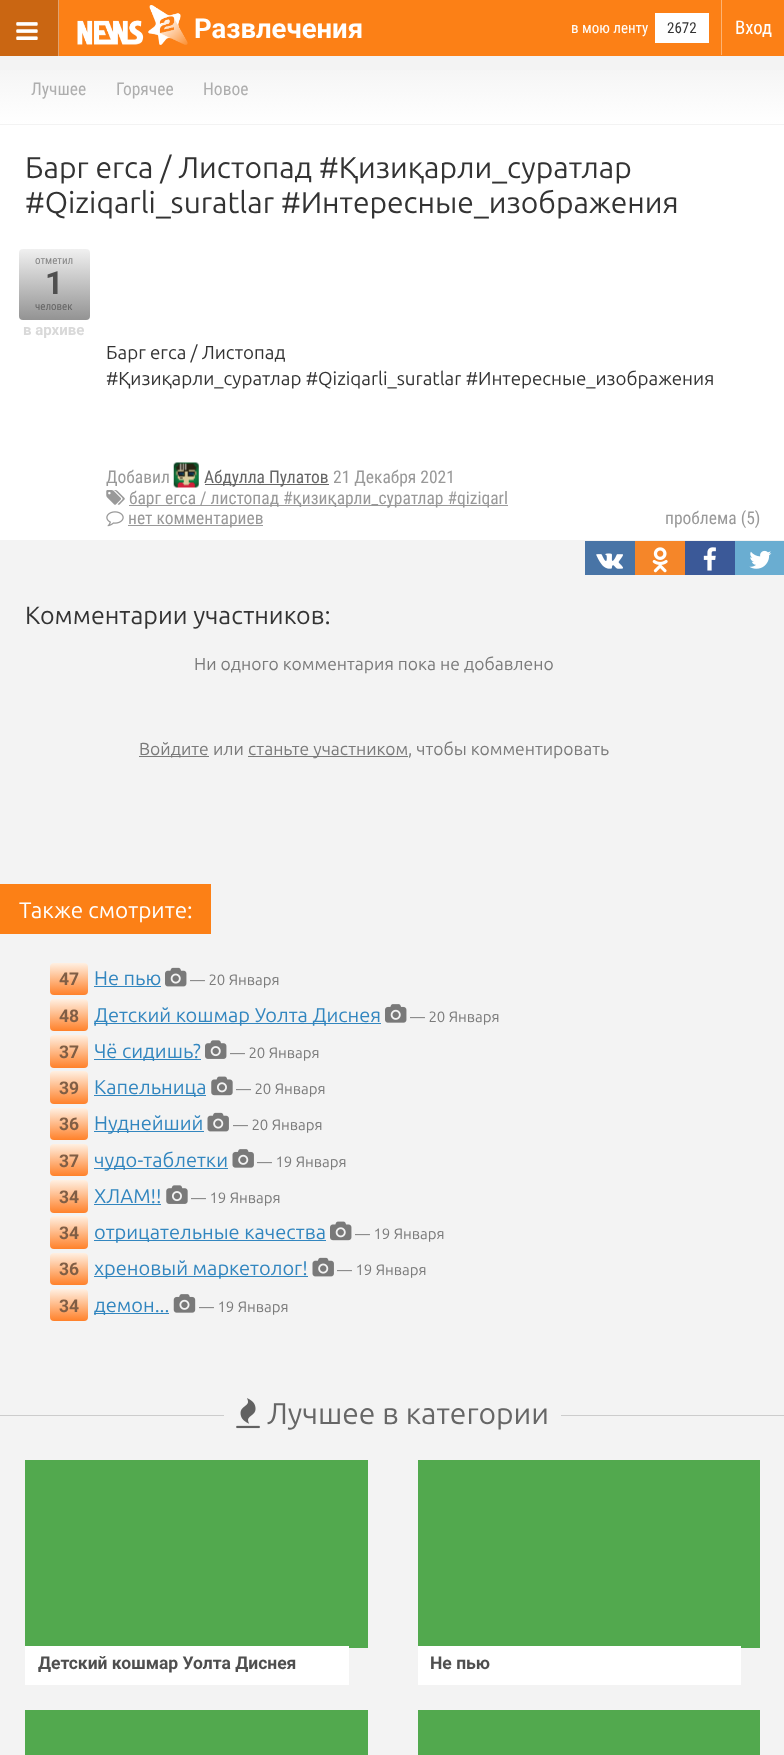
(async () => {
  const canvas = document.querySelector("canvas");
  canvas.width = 784;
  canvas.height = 1755;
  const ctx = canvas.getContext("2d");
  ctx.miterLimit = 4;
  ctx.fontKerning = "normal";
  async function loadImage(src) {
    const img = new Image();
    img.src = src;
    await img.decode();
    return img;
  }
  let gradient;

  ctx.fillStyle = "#f3f3f3";
  ctx.fillRect(0, 0, 784, 1755);
  for (const [x, y, w, h, color] of [
    [59, 0, 725, 56, "#fc8016"],
    [0, 0, 58, 56, "#ca6612"],
    [58, 0, 1, 56, "#dfa371"],
  ]) {
    ctx.fillStyle = color;
    ctx.fillRect(x, y, w, h);
  }
  ctx.drawImage(await loadImage("img/1.png"), 16, 22, 22, 18);
  ctx.drawImage(await loadImage("img/2.png"), 77, 5, 111, 40);
  ctx.fillStyle = "#ffffff";
  ctx.fillRect(655, 13, 54, 30);
  ctx.fillStyle = "#fdb373";
  ctx.fillRect(721, 0, 1, 55);
  gradient = ctx.createLinearGradient(393, 56, 393, 124);
  gradient.addColorStop(0, "#f3f3f3");
  gradient.addColorStop(1, "#ffffff");
  ctx.fillStyle = gradient;
  ctx.fillRect(0, 70, 784, 54);
  ctx.fillStyle = "#ffffff";
  ctx.fillRect(0, 125, 784, 415);
  gradient = ctx.createLinearGradient(54, 249, 54, 320);
  gradient.addColorStop(0, "#f0f0f0");
  gradient.addColorStop(1, "#939393");
  ctx.fillStyle = gradient;
  ctx.beginPath();
  ctx.roundRect(19, 249, 71, 71, 4);
  ctx.fill();
  ctx.drawImage(await loadImage("img/3.png"), 173, 462, 26, 26);
  ctx.fillStyle = "#666666";
  ctx.fillRect(205, 484, 124, 1);
  ctx.drawImage(await loadImage("img/4.png"), 106, 490, 19, 15);
  ctx.fillStyle = "#999999";
  ctx.fillRect(129, 505, 379, 1);
  ctx.drawImage(await loadImage("img/5.png"), 106, 511, 18, 16);
  ctx.fillRect(128, 525, 135, 1);
  ctx.fillStyle = "#4874a6";
  ctx.fillRect(585, 541, 50, 34);
  ctx.drawImage(await loadImage("img/6.png"), 596, 553, 27, 16);
  ctx.fillStyle = "#f58629";
  ctx.fillRect(635, 541, 50, 34);
  ctx.drawImage(await loadImage("img/7.png"), 652, 547, 16, 26);
  ctx.fillStyle = "#3b5998";
  ctx.fillRect(685, 541, 50, 34);
  ctx.drawImage(await loadImage("img/8.png"), 703, 547, 13, 24);
  ctx.fillStyle = "#6aadd1";
  ctx.fillRect(735, 541, 49, 34);
  ctx.drawImage(await loadImage("img/9.png"), 749, 550, 23, 19);
  for (const [x, y, w, h, color] of [
    [139, 756, 70, 1, "#7a7a7a"],
    [248, 756, 160, 1, "#7a7a7a"],
    [0, 884, 211, 50, "#fc8016"],
  ]) {
    ctx.fillStyle = color;
    ctx.fillRect(x, y, w, h);
  }
  gradient = ctx.createLinearGradient(69, 963, 69, 995);
  gradient.addColorStop(0, "#fff0e2");
  gradient.addColorStop(1, "#ff812a");
  ctx.fillStyle = gradient;
  ctx.beginPath();
  ctx.roundRect(50, 963, 38, 32, 4);
  ctx.fill();
  ctx.fillStyle = "#3286bf";
  ctx.fillRect(94, 986, 67, 1);
  ctx.drawImage(await loadImage("img/10.png"), 165, 967, 22, 20);
  gradient = ctx.createLinearGradient(69, 999, 69, 1031);
  gradient.addColorStop(0, "#fff0e2");
  gradient.addColorStop(1, "#ff812a");
  ctx.fillStyle = gradient;
  ctx.beginPath();
  ctx.roundRect(50, 999, 38, 32, 4);
  ctx.fill();
  ctx.fillStyle = "#3286bf";
  ctx.fillRect(94, 1023, 287, 1);
  ctx.drawImage(await loadImage("img/11.png"), 385, 1004, 22, 19);
  gradient = ctx.createLinearGradient(69, 1035, 69, 1068);
  gradient.addColorStop(0, "#fff0e2");
  gradient.addColorStop(1, "#ff812a");
  ctx.fillStyle = gradient;
  ctx.beginPath();
  ctx.roundRect(50, 1035, 38, 33, 4);
  ctx.fill();
  ctx.fillStyle = "#3286bf";
  ctx.fillRect(94, 1059, 107, 1);
  ctx.drawImage(await loadImage("img/12.png"), 205, 1040, 22, 19);
  gradient = ctx.createLinearGradient(69, 1071, 69, 1104);
  gradient.addColorStop(0, "#fff0e2");
  gradient.addColorStop(1, "#ff812a");
  ctx.fillStyle = gradient;
  ctx.beginPath();
  ctx.roundRect(50, 1071, 38, 33, 4);
  ctx.fill();
  ctx.fillStyle = "#3286bf";
  ctx.fillRect(94, 1095, 112, 1);
  ctx.drawImage(await loadImage("img/13.png"), 211, 1076, 22, 20);
  gradient = ctx.createLinearGradient(69, 1108, 69, 1140);
  gradient.addColorStop(0, "#fff0e2");
  gradient.addColorStop(1, "#ff812a");
  ctx.fillStyle = gradient;
  ctx.beginPath();
  ctx.roundRect(50, 1108, 38, 32, 4);
  ctx.fill();
  ctx.fillStyle = "#3286bf";
  ctx.fillRect(94, 1131, 110, 1);
  ctx.drawImage(await loadImage("img/14.png"), 207, 1112, 22, 20);
  gradient = ctx.createLinearGradient(69, 1144, 69, 1176);
  gradient.addColorStop(0, "#fff0e2");
  gradient.addColorStop(1, "#ff812a");
  ctx.fillStyle = gradient;
  ctx.beginPath();
  ctx.roundRect(50, 1144, 38, 32, 4);
  ctx.fill();
  ctx.fillStyle = "#3286bf";
  ctx.fillRect(94, 1168, 134, 1);
  ctx.drawImage(await loadImage("img/15.png"), 232, 1149, 22, 19);
  gradient = ctx.createLinearGradient(69, 1180, 69, 1213);
  gradient.addColorStop(0, "#fff0e2");
  gradient.addColorStop(1, "#ff812a");
  ctx.fillStyle = gradient;
  ctx.beginPath();
  ctx.roundRect(50, 1180, 38, 33, 4);
  ctx.fill();
  ctx.fillStyle = "#3286bf";
  ctx.fillRect(94, 1204, 67, 1);
  ctx.drawImage(await loadImage("img/16.png"), 166, 1185, 22, 19);
  gradient = ctx.createLinearGradient(69, 1216, 69, 1249);
  gradient.addColorStop(0, "#fff0e2");
  gradient.addColorStop(1, "#ff812a");
  ctx.fillStyle = gradient;
  ctx.beginPath();
  ctx.roundRect(50, 1216, 38, 33, 4);
  ctx.fill();
  ctx.fillStyle = "#3286bf";
  ctx.fillRect(94, 1240, 232, 1);
  ctx.drawImage(await loadImage("img/17.png"), 330, 1221, 22, 20);
  gradient = ctx.createLinearGradient(69, 1253, 69, 1285);
  gradient.addColorStop(0, "#fff0e2");
  gradient.addColorStop(1, "#ff812a");
  ctx.fillStyle = gradient;
  ctx.beginPath();
  ctx.roundRect(50, 1253, 38, 32, 4);
  ctx.fill();
  ctx.fillStyle = "#3286bf";
  ctx.fillRect(94, 1276, 214, 1);
  ctx.drawImage(await loadImage("img/14.png"), 312, 1257, 22, 20);
  gradient = ctx.createLinearGradient(69, 1289, 69, 1321);
  gradient.addColorStop(0, "#fff0e2");
  gradient.addColorStop(1, "#ff812a");
  ctx.fillStyle = gradient;
  ctx.beginPath();
  ctx.roundRect(50, 1289, 38, 32, 4);
  ctx.fill();
  ctx.fillStyle = "#3286bf";
  ctx.fillRect(94, 1313, 75, 1);
  ctx.drawImage(await loadImage("img/18.png"), 173, 1294, 23, 19);
  ctx.fillStyle = "#cccccc";
  ctx.fillRect(0, 1415, 784, 1);
  ctx.fillStyle = "#f3f3f3";
  ctx.fillRect(224, 1415, 337, 1);
  ctx.drawImage(await loadImage("img/19.png"), 236, 1398, 24, 31);
  for (const [x, y, w, h, color] of [
    [25, 1460, 343, 188, "#52a94e"],
    [25, 1646, 324, 39, "#ffffff"],
    [418, 1460, 342, 188, "#52a94e"],
    [418, 1646, 323, 39, "#ffffff"],
    [25, 1710, 343, 45, "#52a94e"],
    [418, 1710, 342, 45, "#52a94e"],
  ]) {
    ctx.fillStyle = color;
    ctx.fillRect(x, y, w, h);
  }
  ctx.font = "bold 27.5px Roboto";
  ctx.fillStyle = "#ffffff";
  ctx.fillText("Развлечения", 194, 38);
  ctx.font = "15px Roboto Condensed";
  ctx.fillText("в мою ленту", 571, 33);
  ctx.fillStyle = "#333333";
  ctx.fillText("2672", 667, 33);
  ctx.font = "18.75px Roboto Condensed";
  ctx.fillStyle = "#ffffff";
  ctx.fillText("Вход", 735, 34);
  ctx.font = "17.5px Roboto Condensed";
  ctx.fillStyle = "#aeaeae";
  for (const [text, x, y] of [
    ["Лучшее", 31, 95],
    ["Горячее", 116, 95],
    ["Новое", 203, 95],
  ]) {
    ctx.fillText(text, x, y);
  }
  ctx.font = "30px Ubuntu";
  ctx.fillStyle = "#333333";
  ctx.fillText("Барг егса / Листопад #Қизиқарли_суратлар", 25, 178);
  ctx.fillText("#Qiziqarli_suratlar #Интересные_изображения", 25, 213);
  ctx.font = "11px Roboto Condensed";
  ctx.fillStyle = "#878787";
  ctx.fillText("отметил", 35, 264);
  ctx.font = "bold 32px Roboto";
  ctx.fillStyle = "#4f4f4f";
  ctx.fillText("1", 45, 294);
  ctx.font = "11px Roboto Condensed";
  ctx.fillStyle = "#666666";
  ctx.fillText("человек", 35, 310);
  ctx.font = "bold 15px Roboto";
  ctx.fillStyle = "#d9d9d9";
  ctx.fillText("в архиве", 23, 335);
  ctx.font = "18.75px Ubuntu";
  ctx.fillStyle = "#333333";
  ctx.fillText("Барг егса / Листопад", 106, 359);
  ctx.fillText("#Қизиқарли_суратлар #Qiziqarli_suratlar #Интересные_изображения", 106, 385);
  ctx.font = "17.5px Roboto Condensed";
  ctx.fillStyle = "#999999";
  ctx.fillText("Добавил", 106, 483);
  ctx.fillStyle = "#666666";
  ctx.fillText("Абдулла Пулатов", 204, 483);
  ctx.fillStyle = "#999999";
  for (const [text, x, y] of [
    ["21 Декабря 2021", 333, 483],
    ["барг егса / листопад #қизиқарли_суратлар #qiziqarl", 129, 504],
    ["нет комментариев", 128, 524],
    ["проблема (5)", 665, 524],
  ]) {
    ctx.fillText(text, x, y);
  }
  ctx.font = "25px Ubuntu";
  ctx.fillStyle = "#333333";
  ctx.fillText("Комментарии участников:", 25, 624);
  ctx.font = "17.5px Ubuntu";
  ctx.fillStyle = "#7a7a7a";
  for (const [text, x, y] of [
    ["Ни одного комментария пока не добавлено", 194, 670],
    ["Войдите", 139, 755],
    ["или", 213, 755],
    ["станьте участником", 248, 755],
    [", чтобы комментировать", 408, 755],
  ]) {
    ctx.fillText(text, x, y);
  }
  ctx.font = "22.5px Ubuntu";
  ctx.fillStyle = "#ffffff";
  ctx.fillText("Также смотрите:", 19, 918);
  ctx.font = "bold 17.5px Roboto";
  ctx.fillStyle = "#805e45";
  ctx.fillText("47", 59, 985);
  ctx.font = "20px Ubuntu";
  ctx.fillStyle = "#3286bf";
  ctx.fillText("Не пью", 94, 985);
  ctx.font = "15px Ubuntu";
  ctx.fillStyle = "#7a7a7a";
  ctx.fillText("— 20 Января", 190, 985);
  ctx.font = "bold 17.5px Roboto";
  ctx.fillStyle = "#805e45";
  ctx.fillText("48", 59, 1022);
  ctx.font = "20px Ubuntu";
  ctx.fillStyle = "#3286bf";
  ctx.fillText("Детский кошмар Уолта Диснея", 94, 1022);
  ctx.font = "15px Ubuntu";
  ctx.fillStyle = "#7a7a7a";
  ctx.fillText("— 20 Января", 410, 1022);
  ctx.font = "bold 17.5px Roboto";
  ctx.fillStyle = "#805e45";
  ctx.fillText("37", 59, 1058);
  ctx.font = "20px Ubuntu";
  ctx.fillStyle = "#3286bf";
  ctx.fillText("Чё сидишь?", 94, 1058);
  ctx.font = "15px Ubuntu";
  ctx.fillStyle = "#7a7a7a";
  ctx.fillText("— 20 Января", 230, 1058);
  ctx.font = "bold 17.5px Roboto";
  ctx.fillStyle = "#805e45";
  ctx.fillText("39", 59, 1094);
  ctx.font = "20px Ubuntu";
  ctx.fillStyle = "#3286bf";
  ctx.fillText("Капельница", 94, 1094);
  ctx.font = "15px Ubuntu";
  ctx.fillStyle = "#7a7a7a";
  ctx.fillText("— 20 Января", 236, 1094);
  ctx.font = "bold 17.5px Roboto";
  ctx.fillStyle = "#805e45";
  ctx.fillText("36", 59, 1130);
  ctx.font = "20px Ubuntu";
  ctx.fillStyle = "#3286bf";
  ctx.fillText("Нуднейший", 94, 1130);
  ctx.font = "15px Ubuntu";
  ctx.fillStyle = "#7a7a7a";
  ctx.fillText("— 20 Января", 233, 1130);
  ctx.font = "bold 17.5px Roboto";
  ctx.fillStyle = "#805e45";
  ctx.fillText("37", 59, 1167);
  ctx.font = "20px Ubuntu";
  ctx.fillStyle = "#3286bf";
  ctx.fillText("чудо-таблетки", 94, 1167);
  ctx.font = "15px Ubuntu";
  ctx.fillStyle = "#7a7a7a";
  ctx.fillText("— 19 Января", 257, 1167);
  ctx.font = "bold 17.5px Roboto";
  ctx.fillStyle = "#805e45";
  ctx.fillText("34", 59, 1203);
  ctx.font = "20px Ubuntu";
  ctx.fillStyle = "#3286bf";
  ctx.fillText("ХЛАМ!!", 94, 1203);
  ctx.font = "15px Ubuntu";
  ctx.fillStyle = "#7a7a7a";
  ctx.fillText("— 19 Января", 191, 1203);
  ctx.font = "bold 17.5px Roboto";
  ctx.fillStyle = "#805e45";
  ctx.fillText("34", 59, 1239);
  ctx.font = "20px Ubuntu";
  ctx.fillStyle = "#3286bf";
  ctx.fillText("отрицательные качества", 94, 1239);
  ctx.font = "15px Ubuntu";
  ctx.fillStyle = "#7a7a7a";
  ctx.fillText("— 19 Января", 355, 1239);
  ctx.font = "bold 17.5px Roboto";
  ctx.fillStyle = "#805e45";
  ctx.fillText("36", 59, 1275);
  ctx.font = "20px Ubuntu";
  ctx.fillStyle = "#3286bf";
  ctx.fillText("хреновый маркетолог!", 94, 1275);
  ctx.font = "15px Ubuntu";
  ctx.fillStyle = "#7a7a7a";
  ctx.fillText("— 19 Января", 337, 1275);
  ctx.font = "bold 17.5px Roboto";
  ctx.fillStyle = "#805e45";
  ctx.fillText("34", 59, 1312);
  ctx.font = "20px Ubuntu";
  ctx.fillStyle = "#3286bf";
  ctx.fillText("демон...", 94, 1312);
  ctx.font = "15px Ubuntu";
  ctx.fillStyle = "#7a7a7a";
  ctx.fillText("— 19 Января", 199, 1312);
  ctx.font = "30px Ubuntu";
  ctx.fillStyle = "#666666";
  ctx.fillText("Лучшее в категории", 267, 1424);
  ctx.font = "bold 17.5px Roboto";
  ctx.fillStyle = "#4f4f4f";
  ctx.fillText("Детский кошмар Уолта Диснея", 38, 1669);
  ctx.fillText("Не пью", 430, 1669);
})();
